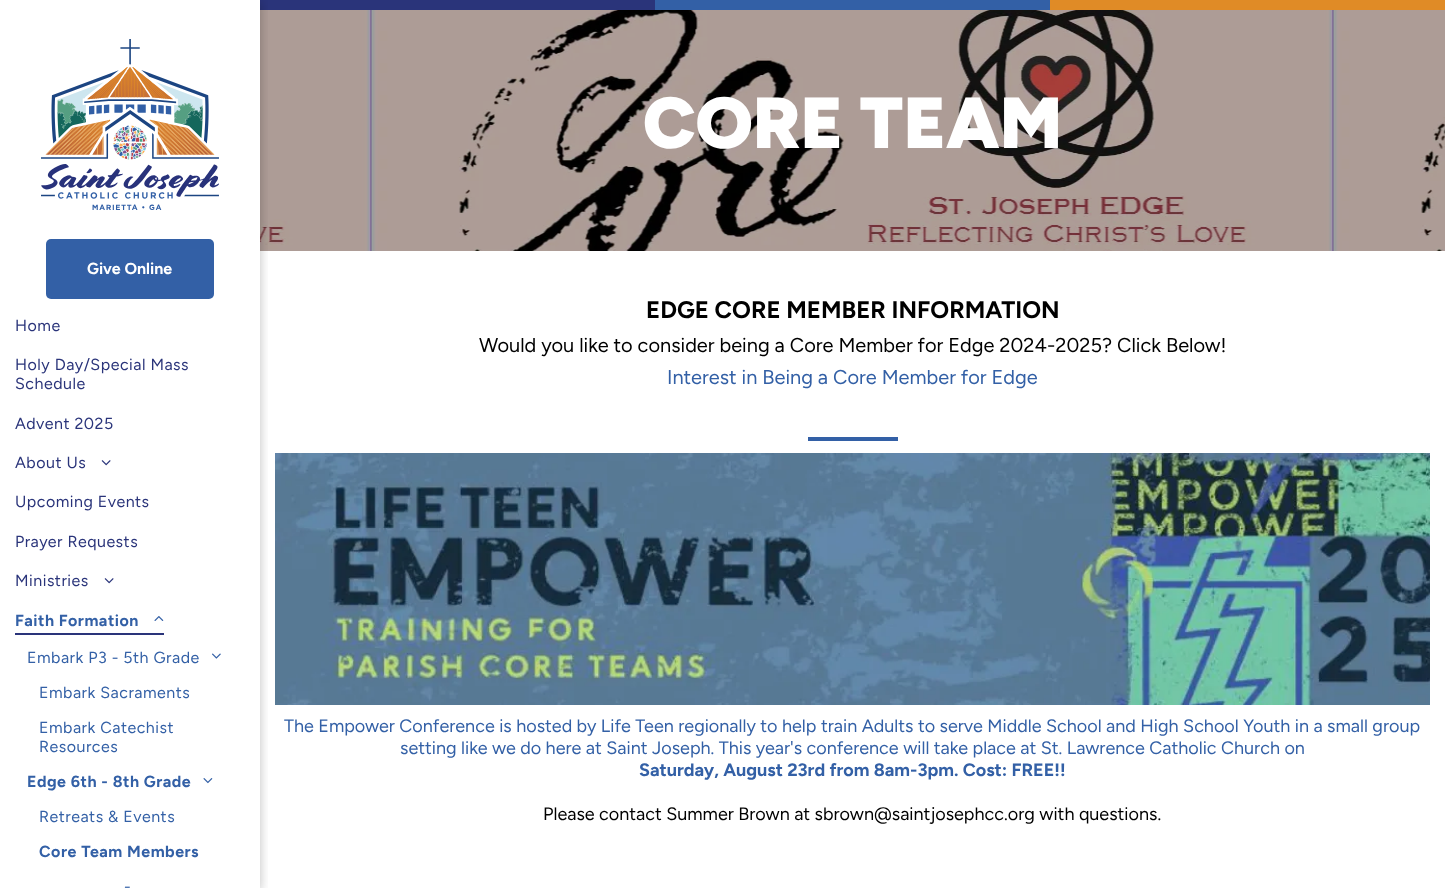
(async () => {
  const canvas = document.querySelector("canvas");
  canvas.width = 1445;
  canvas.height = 888;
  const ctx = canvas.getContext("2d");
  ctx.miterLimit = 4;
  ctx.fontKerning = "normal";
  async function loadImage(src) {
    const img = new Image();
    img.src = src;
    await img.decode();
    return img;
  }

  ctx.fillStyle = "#ffffff";
  ctx.fillRect(0, 0, 1445, 888);
  ctx.fillStyle = "#2a347a";
  ctx.fillRect(260, 0, 395, 10);
  ctx.drawImage(await loadImage("img/6.png"), 260, 10, 1185, 241);
  ctx.drawImage(await loadImage("img/7.png"), 275, 453, 1155, 252);
  ctx.save();
  ctx.beginPath();
  ctx.rect(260, 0, 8, 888);
  ctx.clip();
  ctx.fillStyle = "rgba(0, 0, 0, 0.25)";
  ctx.filter = "blur(5.5px)";
  ctx.beginPath();
  ctx.rect(0, 3, 260, 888);
  ctx.fill();
  ctx.filter = "none";
  ctx.restore();
  ctx.drawImage(await loadImage("img/1.png"), 41, 39, 178, 171);
  ctx.fillStyle = "#3360a6";
  ctx.beginPath();
  ctx.roundRect(46, 239, 168, 60, 5);
  ctx.fill();
  ctx.drawImage(await loadImage("img/2.png"), 101, 460, 10, 6);
  ctx.drawImage(await loadImage("img/2.png"), 104, 578, 10, 6);
  ctx.drawImage(await loadImage("img/3.png"), 154, 616, 10, 5);
  ctx.fillStyle = "#2a347a";
  ctx.fillRect(15, 633, 149, 2);
  ctx.drawImage(await loadImage("img/4.png"), 212, 653, 9, 6);
  ctx.drawImage(await loadImage("img/5.png"), 203, 778, 10, 6);
  for (const [x, y, w, h, color] of [
    [655, 0, 395, 10, "#3360a6"],
    [1050, 0, 395, 10, "#e08b26"],
    [808, 437, 90, 4, "#3360a6"],
  ]) {
    ctx.fillStyle = color;
    ctx.fillRect(x, y, w, h);
  }
  ctx.font = "bold 16px Figtree";
  ctx.fillStyle = "#ffffff";
  ctx.fillText("Give Online", 87, 274);
  ctx.letterSpacing = "0.5px";
  ctx.font = "16px Figtree";
  ctx.fillStyle = "#2a347a";
  for (const [text, x, y] of [
    ["Home", 15, 331],
    ["Holy Day/Special Mass", 15, 370],
    ["Schedule", 15, 389],
    ["Advent 2025", 15, 429],
    ["About Us", 15, 468],
    ["Upcoming Events", 15, 507],
    ["Prayer Requests", 15, 547],
    ["Ministries", 15, 586],
  ]) {
    ctx.fillText(text, x, y);
  }
  ctx.font = "bold 16px Figtree";
  ctx.fillStyle = "#3360a6";
  ctx.fillText("Faith Formation", 15, 626);
  ctx.font = "16px Figtree";
  for (const [text, x, y] of [
    ["Embark P3 - 5th Grade", 27, 663],
    ["Embark Sacraments", 39, 698],
    ["Embark Catechist", 39, 733],
    ["Resources", 39, 752],
  ]) {
    ctx.fillText(text, x, y);
  }
  ctx.font = "bold 16px Figtree";
  ctx.fillText("Edge 6th - 8th Grade", 27, 787);
  ctx.font = "16px Figtree";
  ctx.fillText("Retreats & Events", 39, 822);
  ctx.font = "bold 16px Figtree";
  ctx.fillText("Core Team Members", 39, 857);
  ctx.font = "16px Figtree";
  ctx.fillText("-", 124, 892);
  ctx.letterSpacing = "0px";
  ctx.font = "900 72px Figtree";
  ctx.fillStyle = "#ffffff";
  ctx.fillText("CORE TEAM", 643, 148);
  ctx.font = "bold 24px Figtree";
  ctx.fillStyle = "#000000";
  ctx.fillText("EDGE CORE MEMBER INFORMATION", 646, 318);
  ctx.font = "20px Figtree";
  ctx.fillText("Would you like to consider being a Core Member for Edge 2024-2025? Click Below!", 479, 352);
  ctx.fillStyle = "#3360a6";
  ctx.fillText("Interest in Being a Core Member for Edge", 667, 384);
  ctx.font = "18px Figtree";
  ctx.fillText("The Empower Conference is hosted by Life Teen regionally to help train Adults to serve Middle School and High School Youth in a small group", 284, 732);
  ctx.fillText("setting like we do here at Saint Joseph. This year's conference will take place at St. Lawrence Catholic Church on", 400, 754);
  ctx.font = "bold 18px Figtree";
  ctx.fillText("Saturday, August 23rd from 8am-3pm. Cost: FREE!!", 639, 776);
  ctx.font = "18px Figtree";
  ctx.fillStyle = "#000000";
  ctx.fillText("Please contact Summer Brown at sbrown@saintjosephcc.org with questions.", 543, 820);
})();
